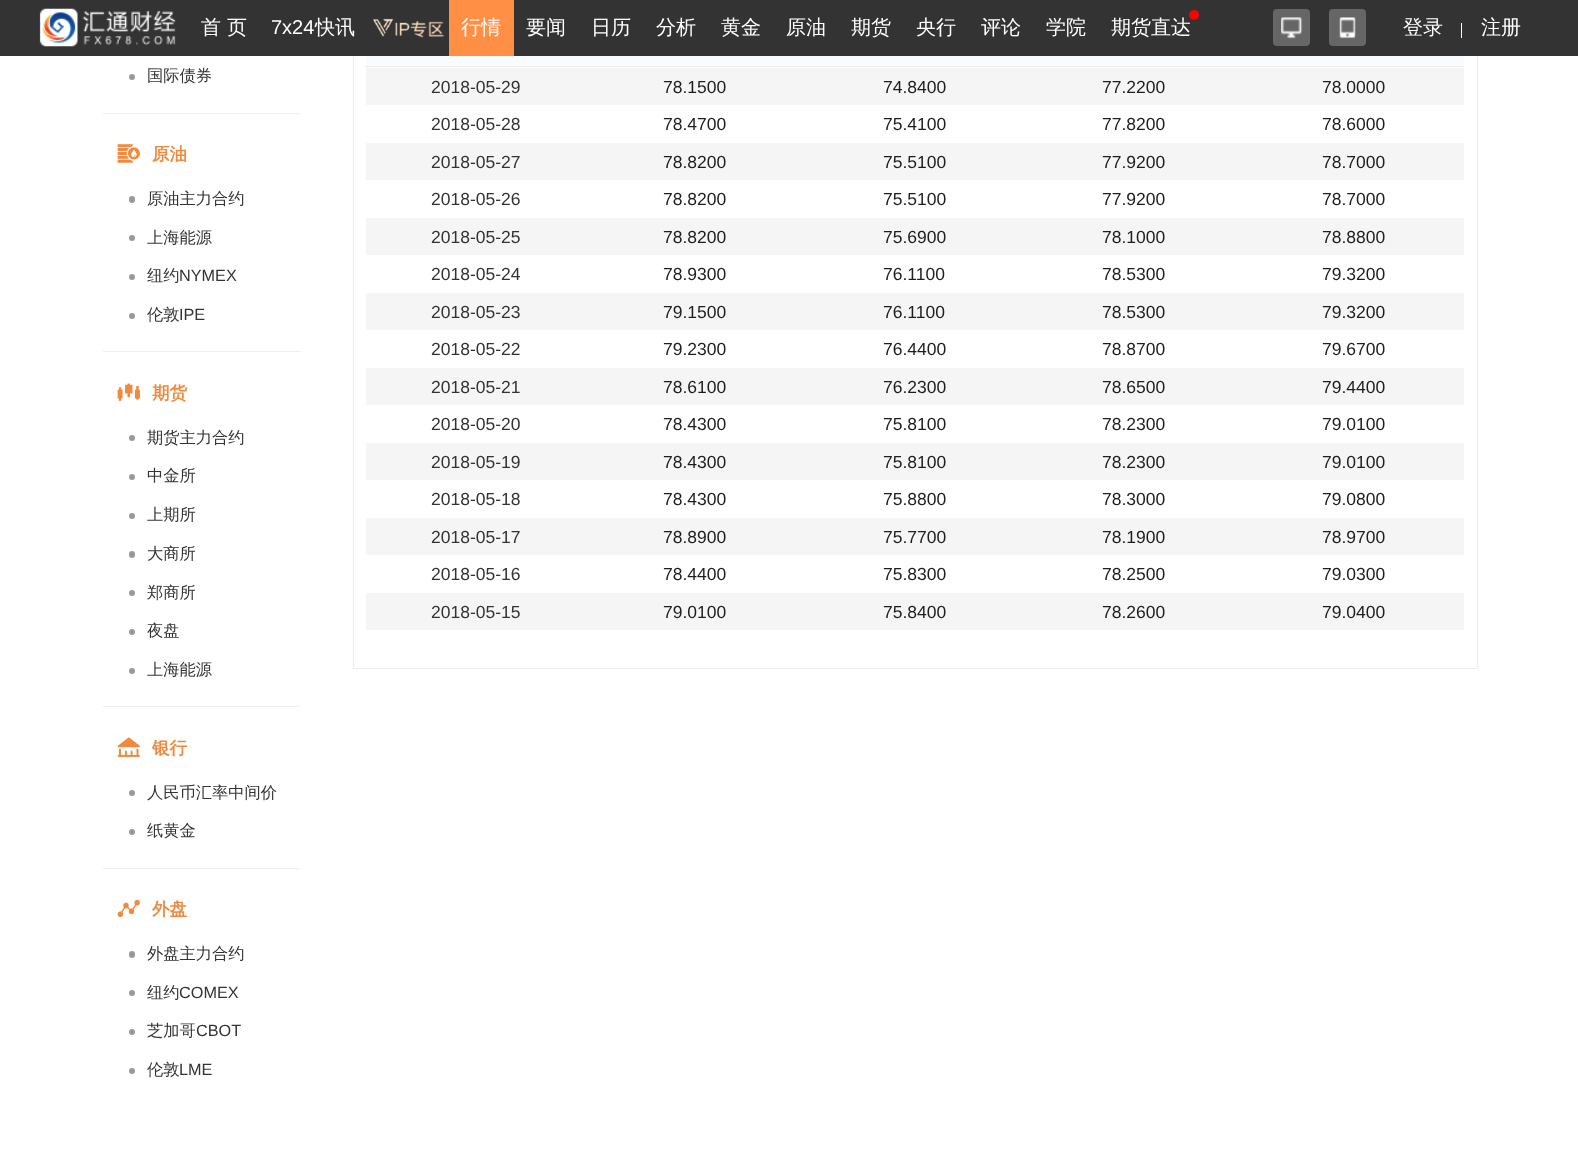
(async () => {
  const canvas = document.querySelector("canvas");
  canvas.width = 1578;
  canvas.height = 1156;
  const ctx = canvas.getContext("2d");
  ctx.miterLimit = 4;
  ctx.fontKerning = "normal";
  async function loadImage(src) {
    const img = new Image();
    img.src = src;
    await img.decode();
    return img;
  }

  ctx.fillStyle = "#ffffff";
  ctx.fillRect(0, 0, 1578, 1156);
  ctx.strokeStyle = "#ebedf0";
  ctx.strokeRect(353.5, -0.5, 1124, 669);
  ctx.fillStyle = "#333333";
  ctx.fillRect(0, 0, 1578, 56);
  ctx.drawImage(await loadImage("img/1.png"), 39, 8, 137, 39);
  ctx.drawImage(await loadImage("img/2.png"), 373, 18, 72, 20);
  ctx.fillStyle = "#ff8f45";
  ctx.fillRect(449, 0, 65, 56);
  ctx.fillStyle = "#666666";
  ctx.beginPath();
  ctx.roundRect(1273, 9, 37, 37, 4);
  ctx.fill();
  ctx.drawImage(await loadImage("img/3.png"), 1281, 17, 22, 22);
  ctx.beginPath();
  ctx.roundRect(1329, 9, 37, 37, 4);
  ctx.fill();
  ctx.drawImage(await loadImage("img/4.png"), 1339, 17, 17, 22);
  ctx.fillStyle = "#ffffff";
  ctx.fillRect(1461, 23, 1, 15);
  ctx.fillStyle = "#eeeeee";
  ctx.fillRect(103, 113, 197, 1);
  ctx.fillStyle = "#999999";
  ctx.beginPath();
  ctx.arc(132, 77, 3, 0, Math.PI * 2);
  ctx.fill();
  ctx.fillStyle = "#eeeeee";
  ctx.fillRect(103, 351, 197, 1);
  ctx.drawImage(await loadImage("img/5.png"), 117, 144, 23, 19);
  ctx.fillStyle = "#999999";
  ctx.beginPath();
  ctx.roundRect(129, 196, 6, 7, 3);
  ctx.fill();
  ctx.beginPath();
  ctx.arc(132, 238, 3, 0, Math.PI * 2);
  ctx.fill();
  ctx.beginPath();
  ctx.arc(132, 277, 3, 0, Math.PI * 2);
  ctx.fill();
  ctx.beginPath();
  ctx.arc(132, 316, 3, 0, Math.PI * 2);
  ctx.fill();
  ctx.fillStyle = "#eeeeee";
  ctx.fillRect(103, 706, 197, 1);
  ctx.drawImage(await loadImage("img/6.png"), 117, 383, 23, 18);
  ctx.fillStyle = "#999999";
  ctx.beginPath();
  ctx.arc(132, 438, 3, 0, Math.PI * 2);
  ctx.fill();
  ctx.beginPath();
  ctx.arc(132, 477, 3, 0, Math.PI * 2);
  ctx.fill();
  ctx.beginPath();
  ctx.arc(132, 516, 3, 0, Math.PI * 2);
  ctx.fill();
  ctx.beginPath();
  ctx.roundRect(129, 551, 6, 7, 3);
  ctx.fill();
  ctx.beginPath();
  ctx.arc(132, 593, 3, 0, Math.PI * 2);
  ctx.fill();
  ctx.beginPath();
  ctx.arc(132, 632, 3, 0, Math.PI * 2);
  ctx.fill();
  ctx.beginPath();
  ctx.arc(132, 671, 3, 0, Math.PI * 2);
  ctx.fill();
  ctx.fillStyle = "#eeeeee";
  ctx.fillRect(103, 868, 197, 1);
  ctx.drawImage(await loadImage("img/7.png"), 117, 737, 23, 20);
  ctx.fillStyle = "#999999";
  ctx.beginPath();
  ctx.arc(132, 793, 3, 0, Math.PI * 2);
  ctx.fill();
  ctx.beginPath();
  ctx.arc(132, 832, 3, 0, Math.PI * 2);
  ctx.fill();
  ctx.drawImage(await loadImage("img/8.png"), 117, 899, 23, 19);
  ctx.beginPath();
  ctx.roundRect(129, 951, 6, 7, 3);
  ctx.fill();
  ctx.beginPath();
  ctx.arc(132, 993, 3, 0, Math.PI * 2);
  ctx.fill();
  ctx.beginPath();
  ctx.arc(132, 1032, 3, 0, Math.PI * 2);
  ctx.fill();
  ctx.beginPath();
  ctx.arc(132, 1071, 3, 0, Math.PI * 2);
  ctx.fill();
  for (const [x, y, w, h, color] of [
    [366, 56, 1098, 12, "#f8fcff"],
    [365, 66, 1099, 1, "#ebebeb"],
    [366, 68, 1098, 37, "#f5f5f5"],
    [366, 143, 1098, 37, "#f5f5f5"],
    [366, 218, 1098, 37, "#f5f5f5"],
    [366, 293, 1098, 37, "#f5f5f5"],
    [366, 368, 1098, 37, "#f5f5f5"],
    [366, 443, 1098, 37, "#f5f5f5"],
    [366, 518, 1098, 37, "#f5f5f5"],
    [366, 593, 1098, 37, "#f5f5f5"],
  ]) {
    ctx.fillStyle = color;
    ctx.fillRect(x, y, w, h);
  }
  ctx.font = "500 20px WenQuanYi Zen Hei";
  ctx.fillStyle = "#ffffff";
  ctx.fillText("首 页", 201, 34);
  ctx.font = "20px Liberation Sans";
  ctx.fillText("7x24", 271, 34);
  ctx.font = "500 20px WenQuanYi Zen Hei";
  for (const [text, x, y] of [
    ["快讯", 315, 34],
    ["行情", 461, 34],
    ["要闻", 526, 34],
    ["日历", 591, 34],
    ["分析", 656, 34],
    ["黄金", 721, 34],
    ["原油", 786, 34],
    ["期货", 851, 34],
    ["央行", 916, 34],
    ["评论", 981, 34],
    ["学院", 1046, 34],
    ["期货直达", 1111, 34],
  ]) {
    ctx.fillText(text, x, y);
  }
  ctx.fillStyle = "#ff0000";
  ctx.beginPath();
  ctx.arc(1194, 15, 5, 0, Math.PI * 2);
  ctx.fill();
  ctx.fillStyle = "#ffffff";
  ctx.fillText("登录", 1403, 34);
  ctx.fillText("注册", 1481, 34);
  ctx.font = "500 16.25px WenQuanYi Zen Hei";
  ctx.fillStyle = "#333333";
  ctx.fillText("国际债券", 147, 81);
  ctx.font = "bold 17.5px WenQuanYi Zen Hei";
  ctx.fillStyle = "#f18a3f";
  ctx.fillText("原油", 152, 160);
  ctx.font = "500 16.25px WenQuanYi Zen Hei";
  ctx.fillStyle = "#333333";
  for (const [text, x, y] of [
    ["原油主力合约", 147, 204],
    ["上海能源", 147, 243],
    ["纽约", 147, 281],
  ]) {
    ctx.fillText(text, x, y);
  }
  ctx.font = "16.25px Liberation Sans";
  ctx.fillText("NYMEX", 179, 281);
  ctx.font = "500 16.25px WenQuanYi Zen Hei";
  ctx.fillText("伦敦", 147, 320);
  ctx.font = "16.25px Liberation Sans";
  ctx.fillText("IPE", 179, 320);
  ctx.font = "bold 17.5px WenQuanYi Zen Hei";
  ctx.fillStyle = "#f18a3f";
  ctx.fillText("期货", 152, 399);
  ctx.font = "500 16.25px WenQuanYi Zen Hei";
  ctx.fillStyle = "#333333";
  for (const [text, x, y] of [
    ["期货主力合约", 147, 443],
    ["中金所", 147, 481],
    ["上期所", 147, 520],
    ["大商所", 147, 559],
    ["郑商所", 147, 598],
    ["夜盘", 147, 636],
    ["上海能源", 147, 675],
  ]) {
    ctx.fillText(text, x, y);
  }
  ctx.font = "bold 17.5px WenQuanYi Zen Hei";
  ctx.fillStyle = "#f18a3f";
  ctx.fillText("银行", 152, 754);
  ctx.font = "500 16.25px WenQuanYi Zen Hei";
  ctx.fillStyle = "#333333";
  ctx.fillText("人民币汇率中间价", 147, 798);
  ctx.fillText("纸黄金", 147, 836);
  ctx.font = "bold 17.5px WenQuanYi Zen Hei";
  ctx.fillStyle = "#f18a3f";
  ctx.fillText("外盘", 152, 915);
  ctx.font = "500 16.25px WenQuanYi Zen Hei";
  ctx.fillStyle = "#333333";
  ctx.fillText("外盘主力合约", 147, 959);
  ctx.fillText("纽约", 147, 998);
  ctx.font = "16.25px Liberation Sans";
  ctx.fillText("COMEX", 179, 998);
  ctx.font = "500 16.25px WenQuanYi Zen Hei";
  ctx.fillText("芝加哥", 147, 1036);
  ctx.font = "16.25px Liberation Sans";
  ctx.fillText("CBOT", 196, 1036);
  ctx.font = "500 16.25px WenQuanYi Zen Hei";
  ctx.fillText("伦敦", 147, 1075);
  ctx.font = "16.25px Liberation Sans";
  ctx.fillText("LME", 179, 1075);
  ctx.font = "17.5px Liberation Sans";
  ctx.fillText("2018-05-29", 431, 93);
  ctx.fillStyle = "#1e1e1e";
  for (const [text, x, y] of [
    ["78.1500", 663, 93],
    ["74.8400", 883, 93],
    ["77.2200", 1102, 93],
    ["78.0000", 1322, 93],
  ]) {
    ctx.fillText(text, x, y);
  }
  ctx.fillStyle = "#333333";
  ctx.fillText("2018-05-28", 431, 130);
  ctx.fillStyle = "#1e1e1e";
  for (const [text, x, y] of [
    ["78.4700", 663, 130],
    ["75.4100", 883, 130],
    ["77.8200", 1102, 130],
    ["78.6000", 1322, 130],
  ]) {
    ctx.fillText(text, x, y);
  }
  ctx.fillStyle = "#333333";
  ctx.fillText("2018-05-27", 431, 168);
  ctx.fillStyle = "#1e1e1e";
  for (const [text, x, y] of [
    ["78.8200", 663, 168],
    ["75.5100", 883, 168],
    ["77.9200", 1102, 168],
    ["78.7000", 1322, 168],
  ]) {
    ctx.fillText(text, x, y);
  }
  ctx.fillStyle = "#333333";
  ctx.fillText("2018-05-26", 431, 205);
  ctx.fillStyle = "#1e1e1e";
  for (const [text, x, y] of [
    ["78.8200", 663, 205],
    ["75.5100", 883, 205],
    ["77.9200", 1102, 205],
    ["78.7000", 1322, 205],
  ]) {
    ctx.fillText(text, x, y);
  }
  ctx.fillStyle = "#333333";
  ctx.fillText("2018-05-25", 431, 243);
  ctx.fillStyle = "#1e1e1e";
  for (const [text, x, y] of [
    ["78.8200", 663, 243],
    ["75.6900", 883, 243],
    ["78.1000", 1102, 243],
    ["78.8800", 1322, 243],
  ]) {
    ctx.fillText(text, x, y);
  }
  ctx.fillStyle = "#333333";
  ctx.fillText("2018-05-24", 431, 280);
  ctx.fillStyle = "#1e1e1e";
  for (const [text, x, y] of [
    ["78.9300", 663, 280],
    ["76.1100", 883, 280],
    ["78.5300", 1102, 280],
    ["79.3200", 1322, 280],
  ]) {
    ctx.fillText(text, x, y);
  }
  ctx.fillStyle = "#333333";
  ctx.fillText("2018-05-23", 431, 318);
  ctx.fillStyle = "#1e1e1e";
  for (const [text, x, y] of [
    ["79.1500", 663, 318],
    ["76.1100", 883, 318],
    ["78.5300", 1102, 318],
    ["79.3200", 1322, 318],
  ]) {
    ctx.fillText(text, x, y);
  }
  ctx.fillStyle = "#333333";
  ctx.fillText("2018-05-22", 431, 355);
  ctx.fillStyle = "#1e1e1e";
  for (const [text, x, y] of [
    ["79.2300", 663, 355],
    ["76.4400", 883, 355],
    ["78.8700", 1102, 355],
    ["79.6700", 1322, 355],
  ]) {
    ctx.fillText(text, x, y);
  }
  ctx.fillStyle = "#333333";
  ctx.fillText("2018-05-21", 431, 393);
  ctx.fillStyle = "#1e1e1e";
  for (const [text, x, y] of [
    ["78.6100", 663, 393],
    ["76.2300", 883, 393],
    ["78.6500", 1102, 393],
    ["79.4400", 1322, 393],
  ]) {
    ctx.fillText(text, x, y);
  }
  ctx.fillStyle = "#333333";
  ctx.fillText("2018-05-20", 431, 430);
  ctx.fillStyle = "#1e1e1e";
  for (const [text, x, y] of [
    ["78.4300", 663, 430],
    ["75.8100", 883, 430],
    ["78.2300", 1102, 430],
    ["79.0100", 1322, 430],
  ]) {
    ctx.fillText(text, x, y);
  }
  ctx.fillStyle = "#333333";
  ctx.fillText("2018-05-19", 431, 468);
  ctx.fillStyle = "#1e1e1e";
  for (const [text, x, y] of [
    ["78.4300", 663, 468],
    ["75.8100", 883, 468],
    ["78.2300", 1102, 468],
    ["79.0100", 1322, 468],
  ]) {
    ctx.fillText(text, x, y);
  }
  ctx.fillStyle = "#333333";
  ctx.fillText("2018-05-18", 431, 505);
  ctx.fillStyle = "#1e1e1e";
  for (const [text, x, y] of [
    ["78.4300", 663, 505],
    ["75.8800", 883, 505],
    ["78.3000", 1102, 505],
    ["79.0800", 1322, 505],
  ]) {
    ctx.fillText(text, x, y);
  }
  ctx.fillStyle = "#333333";
  ctx.fillText("2018-05-17", 431, 543);
  ctx.fillStyle = "#1e1e1e";
  for (const [text, x, y] of [
    ["78.8900", 663, 543],
    ["75.7700", 883, 543],
    ["78.1900", 1102, 543],
    ["78.9700", 1322, 543],
  ]) {
    ctx.fillText(text, x, y);
  }
  ctx.fillStyle = "#333333";
  ctx.fillText("2018-05-16", 431, 580);
  ctx.fillStyle = "#1e1e1e";
  for (const [text, x, y] of [
    ["78.4400", 663, 580],
    ["75.8300", 883, 580],
    ["78.2500", 1102, 580],
    ["79.0300", 1322, 580],
  ]) {
    ctx.fillText(text, x, y);
  }
  ctx.fillStyle = "#333333";
  ctx.fillText("2018-05-15", 431, 618);
  ctx.fillStyle = "#1e1e1e";
  for (const [text, x, y] of [
    ["79.0100", 663, 618],
    ["75.8400", 883, 618],
    ["78.2600", 1102, 618],
    ["79.0400", 1322, 618],
  ]) {
    ctx.fillText(text, x, y);
  }
})();
